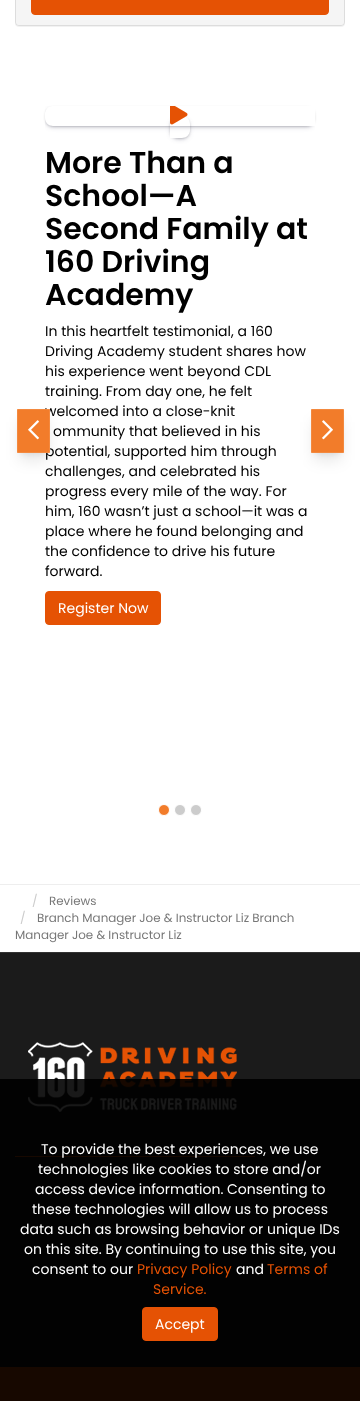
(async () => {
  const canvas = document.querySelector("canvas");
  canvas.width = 360;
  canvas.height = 1401;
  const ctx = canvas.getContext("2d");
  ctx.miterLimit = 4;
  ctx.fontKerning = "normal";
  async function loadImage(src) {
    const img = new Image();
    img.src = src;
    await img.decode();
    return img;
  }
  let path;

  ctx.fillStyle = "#ffffff";
  ctx.fillRect(0, 0, 360, 1401);
  ctx.fillStyle = "rgba(0, 0, 0, 0.05)";
  ctx.filter = "blur(0.5px)";
  ctx.beginPath();
  ctx.roundRect(15, -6, 330, 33, 4);
  ctx.fill();
  ctx.filter = "none";
  ctx.beginPath();
  ctx.roundRect(15.5, -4.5, 329, 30, 3.5);
  ctx.strokeStyle = "#dddddd";
  ctx.stroke();
  ctx.fillStyle = "#f5f5f5";
  path = new Path2D("M16-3H344V22C344 23.5 342.5 25 341 25H19C17.5 25 16 23.5 16 22Z");
  ctx.fill(path);
  ctx.fillStyle = "#e55204";
  ctx.beginPath();
  ctx.roundRect(31.5, -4.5, 297, 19, 3.5);
  ctx.fill();
  ctx.strokeStyle = "#e55204";
  ctx.stroke();
  ctx.fillStyle = "rgba(0, 0, 0, 0.1)";
  ctx.filter = "blur(3px)";
  ctx.beginPath();
  ctx.rect(21, 417, 25, 36);
  ctx.fill();
  ctx.filter = "none";
  ctx.filter = "blur(7.5px)";
  ctx.beginPath();
  ctx.rect(20, 422, 27, 38);
  ctx.fill();
  ctx.filter = "none";
  ctx.save();
  path = new Path2D("M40 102H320V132H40ZM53 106H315V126H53C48.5 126 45 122.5 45 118V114C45 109.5 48.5 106 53 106Z");
  ctx.clip(path, "evenodd");
  ctx.fillStyle = "rgba(0, 0, 0, 0.3)";
  ctx.filter = "blur(1.5px)";
  ctx.beginPath();
  ctx.roundRect(46, 108, 268, 18, 7);
  ctx.fill();
  ctx.filter = "none";
  ctx.restore();
  ctx.save();
  ctx.beginPath();
  ctx.rect(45, 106, 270, 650);
  ctx.clip();
  path = new Path2D("M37 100H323V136H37ZM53 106H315V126H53C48.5 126 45 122.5 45 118V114C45 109.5 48.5 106 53 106Z");
  ctx.clip(path, "evenodd");
  ctx.fillStyle = "rgba(50, 50, 93, 0.25)";
  ctx.filter = "blur(2.5px)";
  ctx.beginPath();
  ctx.roundRect(46, 109, 268, 18, 7);
  ctx.fill();
  ctx.filter = "none";
  ctx.restore();
  ctx.save();
  path = new Path2D("M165 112H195V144H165ZM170 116H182C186.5 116 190 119.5 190 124V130C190 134.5 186.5 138 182 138H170Z");
  ctx.clip(path, "evenodd");
  ctx.fillStyle = "rgba(0, 0, 0, 0.3)";
  ctx.filter = "blur(1.5px)";
  ctx.beginPath();
  ctx.roundRect(171, 118, 18, 20, 7);
  ctx.fill();
  ctx.filter = "none";
  ctx.restore();
  ctx.save();
  path = new Path2D("M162 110H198V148H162ZM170 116H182C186.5 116 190 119.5 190 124V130C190 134.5 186.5 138 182 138H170Z");
  ctx.clip(path, "evenodd");
  ctx.fillStyle = "rgba(50, 50, 93, 0.25)";
  ctx.filter = "blur(2.5px)";
  ctx.beginPath();
  ctx.roundRect(171, 119, 18, 20, 7);
  ctx.fill();
  ctx.filter = "none";
  ctx.restore();
  ctx.drawImage(await loadImage("img/2.png"), 170, 106, 18, 19);
  ctx.fillStyle = "#e55204";
  ctx.beginPath();
  ctx.roundRect(45.5, 591.5, 115, 33, 3.5);
  ctx.fill();
  ctx.stroke();
  ctx.fillStyle = "rgba(0, 0, 0, 0.1)";
  ctx.filter = "blur(3px)";
  ctx.beginPath();
  ctx.rect(315, 417, 25, 36);
  ctx.fill();
  ctx.filter = "none";
  ctx.filter = "blur(7.5px)";
  ctx.beginPath();
  ctx.rect(314, 422, 27, 38);
  ctx.fill();
  ctx.filter = "none";
  ctx.fillStyle = "#f27c2a";
  ctx.beginPath();
  ctx.rect(311.5, 409.5, 32, 43);
  ctx.fill();
  ctx.strokeStyle = "#f3893f";
  ctx.stroke();
  ctx.drawImage(await loadImage("img/3.png"), 322, 420, 11, 20);
  ctx.beginPath();
  ctx.arc(164, 810, 5.5, 0, Math.PI * 2);
  ctx.fill();
  ctx.strokeStyle = "#ffffff";
  ctx.stroke();
  ctx.fillStyle = "#cccccc";
  ctx.beginPath();
  ctx.arc(180, 810, 5.5, 0, Math.PI * 2);
  ctx.fill();
  ctx.stroke();
  ctx.beginPath();
  ctx.arc(196, 810, 5.5, 0, Math.PI * 2);
  ctx.fill();
  ctx.stroke();
  for (const [x, y, w, h, color] of [
    [0, 884, 360, 1, "#eeeeee"],
    [0, 953, 360, 414, "#1b1b1b"],
    [0, 952, 360, 1, "#333333"],
  ]) {
    ctx.fillStyle = color;
    ctx.fillRect(x, y, w, h);
  }
  ctx.drawImage(await loadImage("img/4.png"), 28, 1042, 209, 70);
  for (const [x, y, w, h, color] of [
    [15, 1156, 240, 1, "#e55204"],
    [0, 1367, 360, 34, "#e55204"],
    [0, 1079, 360, 322, "rgba(0, 0, 0, 0.9)"],
  ]) {
    ctx.fillStyle = color;
    ctx.fillRect(x, y, w, h);
  }
  ctx.fillStyle = "#e55204";
  ctx.beginPath();
  ctx.roundRect(142.5, 1307.5, 75, 33, 3.5);
  ctx.fill();
  ctx.strokeStyle = "#e55204";
  ctx.stroke();
  ctx.font = "600 30px Poppins";
  ctx.fillStyle = "#000000";
  for (const [text, x, y] of [
    ["More Than a", 45, 173],
    ["School—A", 45, 206],
    ["Second Family at", 45, 239],
    ["160 Driving", 45, 272],
    ["Academy", 45, 305],
  ]) {
    ctx.fillText(text, x, y);
  }
  ctx.font = "14px Poppins";
  for (const [text, x, y] of [
    ["In this heartfelt testimonial, a 160", 45, 336],
    ["Driving Academy student shares how", 45, 356],
    ["his experience went beyond CDL", 45, 376],
    ["training. From day one, he felt", 45, 396],
    ["welcomed into a close-knit", 45, 416],
    ["ommunity that believed in his", 53, 436],
    ["potential, supported him through", 45, 456],
  ]) {
    ctx.fillText(text, x, y);
  }
  ctx.fillStyle = "#f27c2a";
  ctx.beginPath();
  ctx.rect(17.5, 409.5, 32, 43);
  ctx.fill();
  ctx.strokeStyle = "#f3893f";
  ctx.stroke();
  ctx.drawImage(await loadImage("img/1.png"), 28, 420, 11, 20);
  ctx.fillStyle = "#000000";
  for (const [text, x, y] of [
    ["challenges, and celebrated his", 45, 476],
    ["progress every mile of the way. For", 45, 496],
    ["him, 160 wasn’t just a school—it was a", 45, 516],
    ["place where he found belonging and", 45, 536],
    ["the confidence to drive his future", 45, 556],
    ["forward.", 45, 576],
  ]) {
    ctx.fillText(text, x, y);
  }
  ctx.fillStyle = "#ffffff";
  ctx.fillText("Register Now", 58, 613);
  ctx.font = "11.9px Poppins";
  ctx.fillStyle = "#cccccc";
  ctx.fillText("/", 32, 905);
  ctx.fillStyle = "#777777";
  ctx.fillText("Reviews", 49, 905);
  ctx.fillStyle = "#cccccc";
  ctx.fillText("/", 20, 922);
  ctx.fillStyle = "#777777";
  ctx.fillText("Branch Manager Joe & Instructor Liz Branch", 37, 922);
  ctx.fillText("Manager Joe & Instructor Liz", 15, 939);
  ctx.font = "14px Poppins";
  ctx.fillStyle = "#ffffff";
  for (const [text, x, y] of [
    ["To provide the best experiences, we use", 41, 1154],
    ["technologies like cookies to store and/or", 38, 1174],
    ["access device information. Consenting to", 35, 1194],
    ["these technologies will allow us to process", 32, 1214],
    ["data such as browsing behavior or unique IDs", 20, 1234],
    ["on this site. By continuing to use this site, you", 24, 1254],
    ["consent to our", 32, 1274],
  ]) {
    ctx.fillText(text, x, y);
  }
  ctx.fillStyle = "#e55204";
  ctx.fillText("Privacy Policy", 137, 1274);
  ctx.fillStyle = "#ffffff";
  ctx.fillText("and", 236, 1274);
  ctx.fillStyle = "#e55204";
  ctx.fillText("Terms of", 267, 1274);
  ctx.fillText("Service.", 153, 1294);
  ctx.fillStyle = "#ffffff";
  ctx.fillText("Accept", 155, 1329);
})();
